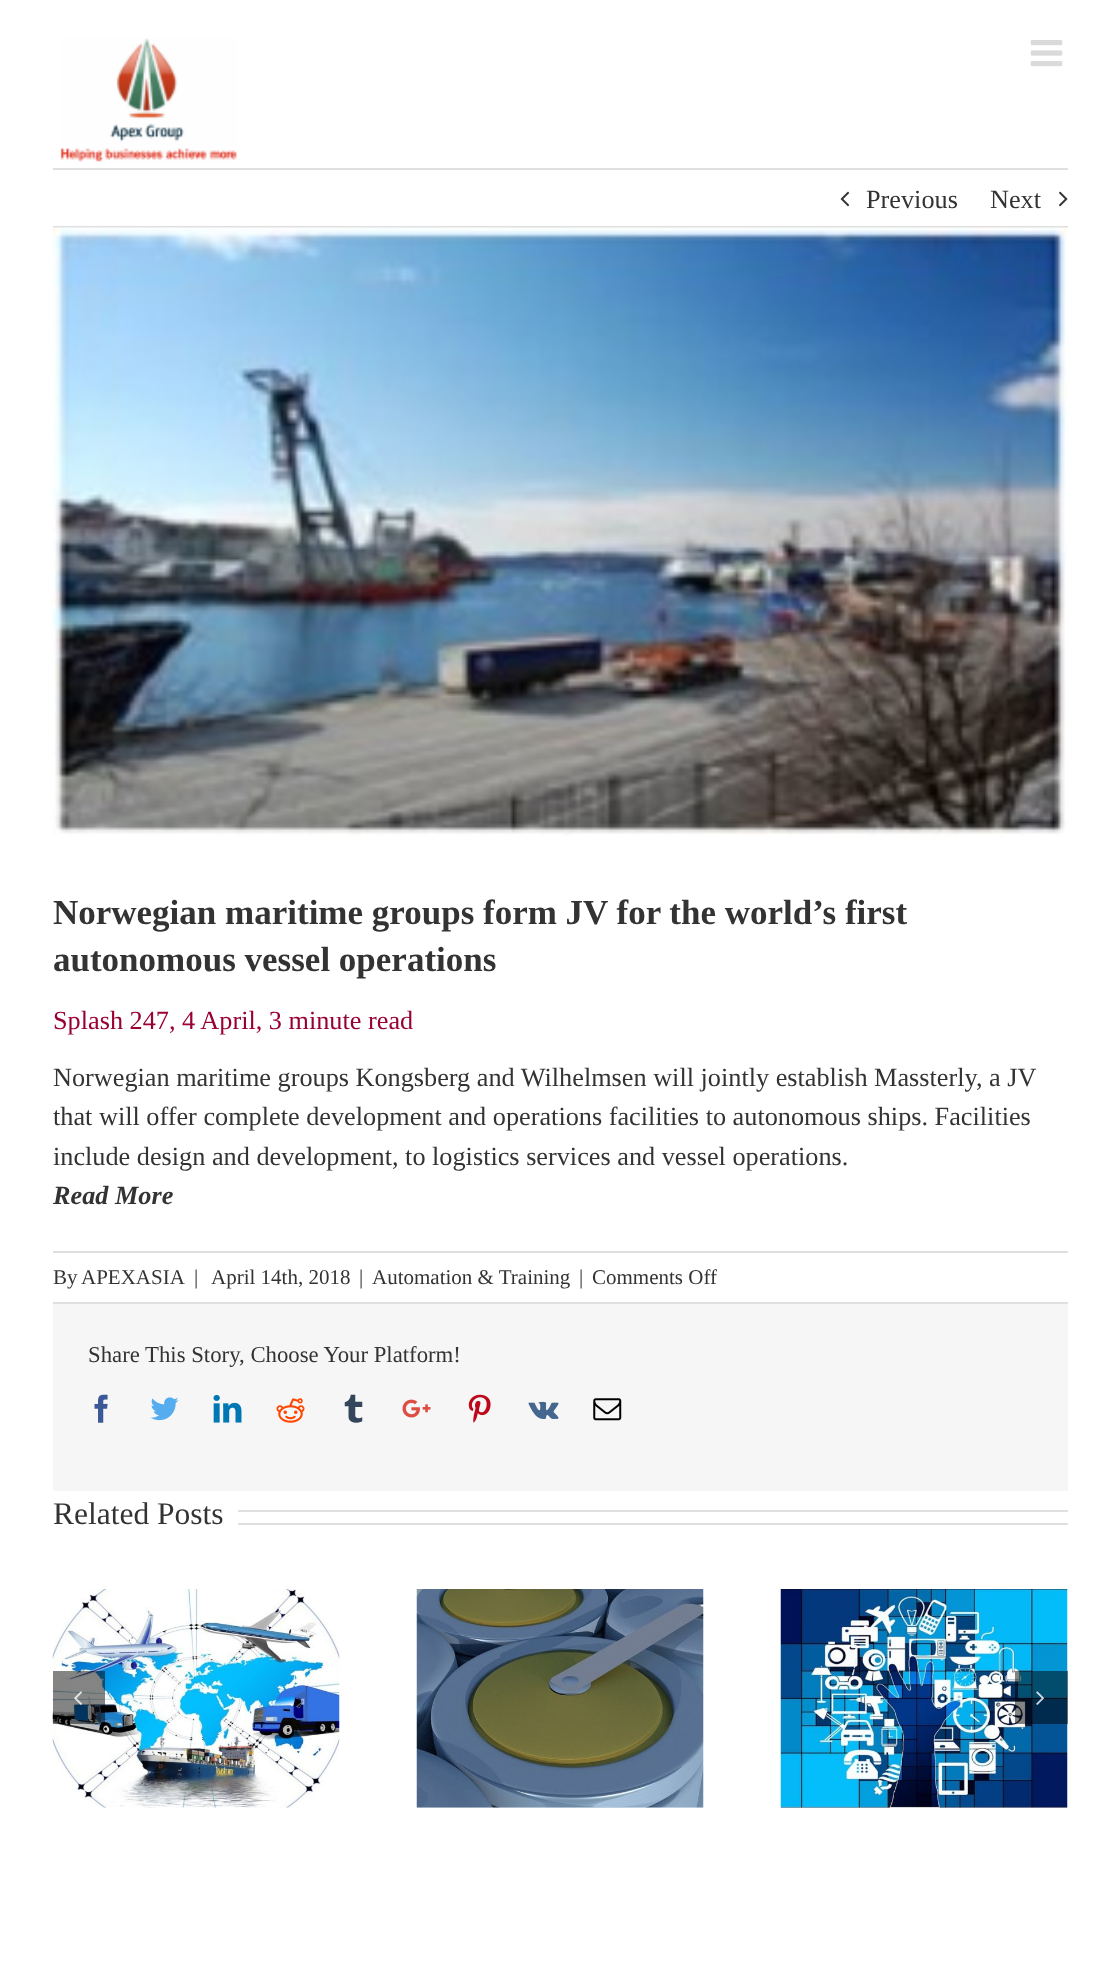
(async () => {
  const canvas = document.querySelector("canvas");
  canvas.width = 1120;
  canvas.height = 1973;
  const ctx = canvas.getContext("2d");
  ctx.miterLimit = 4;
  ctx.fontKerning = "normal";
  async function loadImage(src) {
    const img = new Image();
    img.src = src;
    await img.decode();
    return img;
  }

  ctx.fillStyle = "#ffffff";
  ctx.fillRect(0, 0, 1120, 1973);
  ctx.drawImage(await loadImage("img/1.png"), 60, 38, 177, 124);
  ctx.drawImage(await loadImage("img/2.png"), 1030, 40, 33, 27);
  ctx.fillStyle = "#e0dede";
  ctx.fillRect(53, 168, 1015, 2);
  ctx.fillRect(53, 226, 1015, 2);
  ctx.drawImage(await loadImage("img/3.png"), 840, 191, 10, 16);
  ctx.drawImage(await loadImage("img/4.png"), 1059, 191, 9, 16);
  ctx.drawImage(await loadImage("img/5.png"), 52, 227, 1016, 609);
  for (const [x, y, w, h, color] of [
    [53, 1251, 1015, 2, "#e0dede"],
    [53, 1302, 1015, 2, "#e0dede"],
    [53, 1304, 1015, 187, "#f6f6f6"],
  ]) {
    ctx.fillStyle = color;
    ctx.fillRect(x, y, w, h);
  }
  ctx.drawImage(await loadImage("img/6.png"), 94, 1394, 14, 29);
  ctx.drawImage(await loadImage("img/7.png"), 150, 1397, 29, 24);
  ctx.drawImage(await loadImage("img/8.png"), 213, 1395, 29, 28);
  ctx.drawImage(await loadImage("img/9.png"), 276, 1398, 29, 25);
  ctx.drawImage(await loadImage("img/10.png"), 344, 1394, 19, 29);
  ctx.drawImage(await loadImage("img/11.png"), 402, 1399, 29, 19);
  ctx.drawImage(await loadImage("img/12.png"), 468, 1394, 23, 29);
  ctx.drawImage(await loadImage("img/13.png"), 528, 1401, 31, 18);
  ctx.drawImage(await loadImage("img/14.png"), 593, 1398, 29, 23);
  ctx.fillStyle = "#e0dede";
  ctx.fillRect(238, 1510, 830, 2);
  ctx.fillRect(238, 1523, 830, 2);
  ctx.drawImage(await loadImage("img/15.png"), 52, 1589, 288, 219);
  ctx.drawImage(await loadImage("img/16.png"), 416, 1589, 288, 219);
  ctx.drawImage(await loadImage("img/17.png"), 780, 1589, 288, 219);
  ctx.fillStyle = "rgba(0, 0, 0, 0.48)";
  ctx.fillRect(53, 1671, 52, 53);
  ctx.drawImage(await loadImage("img/18.png"), 74, 1691, 8, 14);
  ctx.fillRect(1015, 1671, 53, 53);
  ctx.drawImage(await loadImage("img/19.png"), 1036, 1691, 9, 14);
  ctx.font = "26.25px Liberation Serif";
  ctx.fillStyle = "#333333";
  ctx.fillText("Previous", 866, 208);
  ctx.fillText("Next", 990, 208);
  ctx.font = "bold 35px Liberation Serif";
  ctx.fillText("Norwegian maritime groups form JV for the world’s first", 53, 924);
  ctx.fillText("autonomous vessel operations", 53, 971);
  ctx.font = "26.25px Liberation Serif";
  ctx.fillStyle = "#990033";
  ctx.fillText("Splash 247, 4 April, 3 minute read", 53, 1029);
  ctx.fillStyle = "#333333";
  for (const [text, x, y] of [
    ["Norwegian maritime groups Kongsberg and Wilhelmsen will jointly establish Massterly, a JV", 53, 1086],
    ["that will offer complete development and operations facilities to autonomous ships. Facilities", 53, 1125],
    ["include design and development, to logistics services and vessel operations.", 53, 1165],
  ]) {
    ctx.fillText(text, x, y);
  }
  ctx.font = "italic bold 26.25px Liberation Serif";
  ctx.fillText("Read More", 53, 1204);
  ctx.font = "21px Liberation Serif";
  for (const [text, x, y] of [
    ["By", 53, 1284],
    ["APEXASIA", 81, 1284],
    ["|", 194, 1284],
    ["April 14th, 2018", 211, 1284],
    ["|", 359, 1284],
    ["Automation & Training", 372, 1284],
    ["|", 579, 1284],
    ["Comments Off", 592, 1284],
  ]) {
    ctx.fillText(text, x, y);
  }
  ctx.font = "22.75px Liberation Serif";
  ctx.fillText("Share This Story, Choose Your Platform!", 88, 1362);
  ctx.font = "31.5px Liberation Serif";
  ctx.fillText("Related Posts", 53, 1524);
})();
